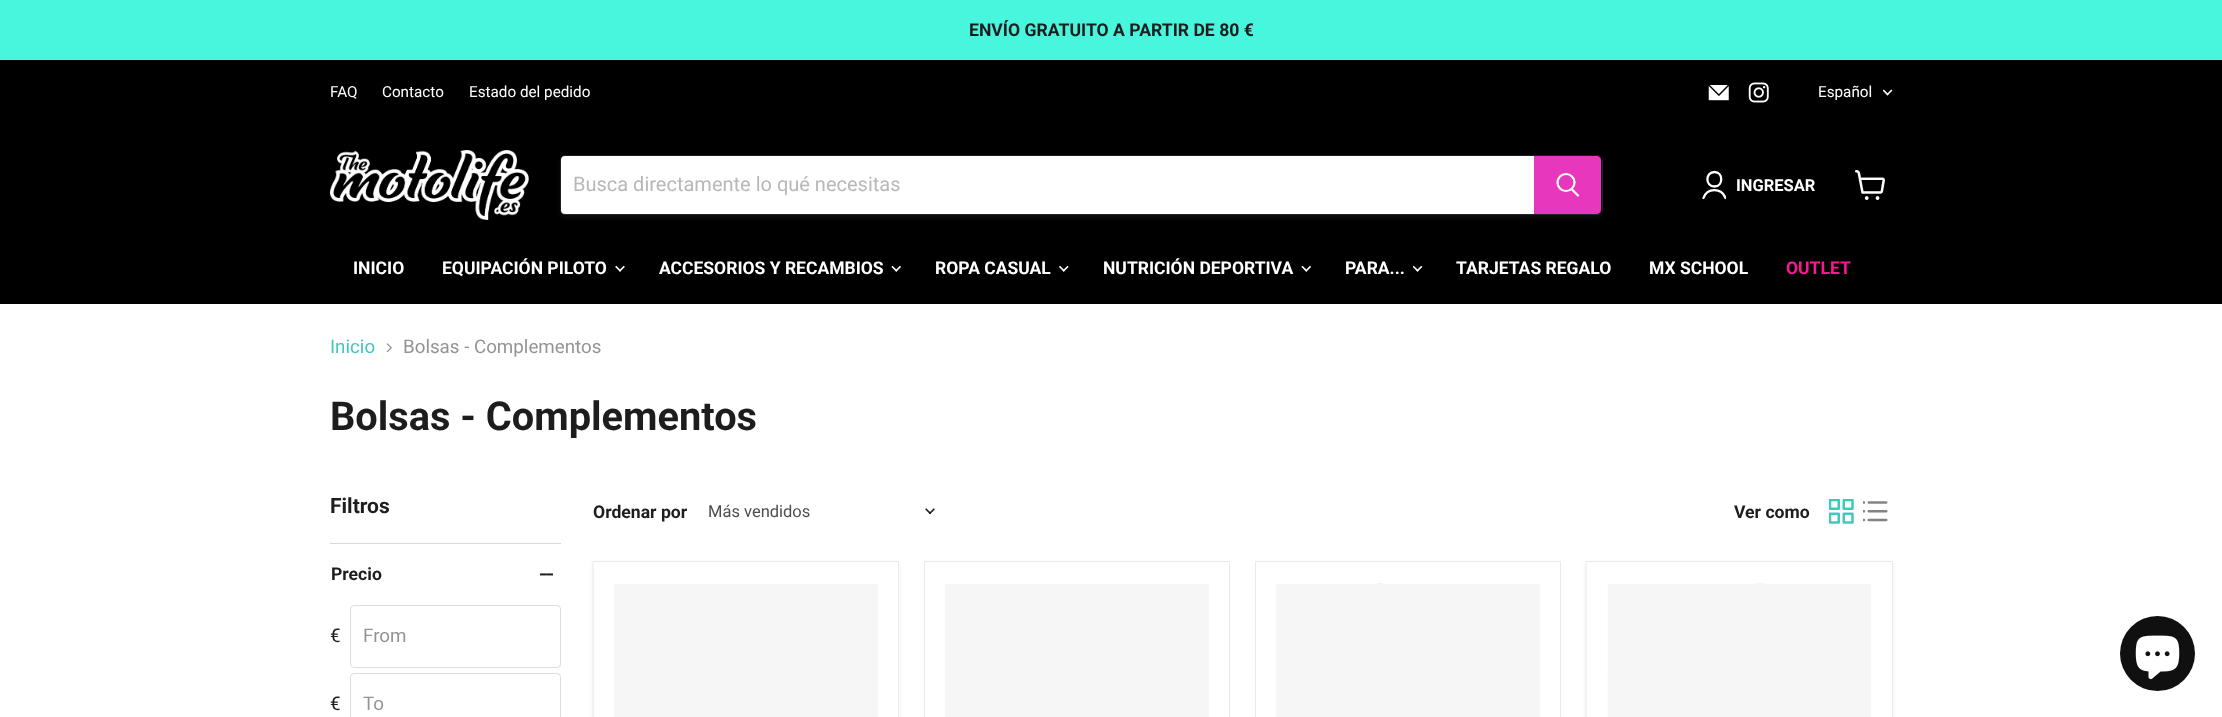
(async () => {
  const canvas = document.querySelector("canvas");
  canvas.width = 2222;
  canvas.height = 717;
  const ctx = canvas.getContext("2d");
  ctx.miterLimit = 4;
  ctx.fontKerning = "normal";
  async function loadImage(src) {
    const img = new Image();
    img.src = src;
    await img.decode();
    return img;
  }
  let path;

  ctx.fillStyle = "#ffffff";
  ctx.fillRect(0, 0, 2222, 717);
  ctx.fillStyle = "#48f5dd";
  ctx.fillRect(0, 0, 2222, 60);
  ctx.fillStyle = "#000000";
  ctx.fillRect(0, 60, 2222, 244);
  ctx.drawImage(await loadImage("img/1.png"), 1708, 85, 21, 16);
  ctx.drawImage(await loadImage("img/2.png"), 1748, 82, 21, 21);
  ctx.drawImage(await loadImage("img/3.png"), 1883, 89, 10, 7);
  ctx.drawImage(await loadImage("img/4.png"), 330, 150, 199, 70);
  ctx.fillStyle = "rgba(128, 128, 128, 0.11)";
  ctx.filter = "blur(2px)";
  ctx.beginPath();
  ctx.roundRect(560, 158, 1043, 60, 5);
  ctx.fill();
  ctx.filter = "none";
  ctx.beginPath();
  ctx.roundRect(560.5, 155.5, 1042, 59, 4.5);
  ctx.strokeStyle = "rgba(128, 128, 128, 0.2)";
  ctx.stroke();
  ctx.fillStyle = "#ffffff";
  ctx.beginPath();
  ctx.roundRect(561, 156, 973, 58, [4, 0, 0, 4]);
  ctx.fill();
  ctx.fillStyle = "#e737bd";
  ctx.beginPath();
  ctx.roundRect(1534.5, 156.5, 66, 57, [0, 3.5, 3.5, 0]);
  ctx.fill();
  ctx.strokeStyle = "#e737bd";
  ctx.stroke();
  path = new Path2D("M1578 195.5L1572 189.5");
  ctx.strokeStyle = "#ffffff";
  ctx.lineWidth = 2.2;
  ctx.lineCap = "round";
  ctx.stroke(path);
  ctx.beginPath();
  ctx.arc(1566, 182.5, 8.5, 0, Math.PI * 2);
  ctx.stroke();
  path = new Path2D("M1714.5 186.5C1723.5 186.5 1723.5 172 1714.5 172C1705 172 1705 186.5 1714.5 186.5Z");
  ctx.lineWidth = 2.3;
  ctx.lineJoin = "round";
  ctx.stroke(path);
  ctx.save();
  ctx.beginPath();
  ctx.rect(1701, 170, 25, 30);
  ctx.clip();
  path = new Path2D("M1725.5 198C1721.5 187.5 1707 187.5 1703.5 198");
  ctx.stroke(path);
  ctx.restore();
  ctx.drawImage(await loadImage("img/5.png"), 1855, 170, 30, 30);
  ctx.drawImage(await loadImage("img/6.png"), 615, 265, 10, 7);
  ctx.drawImage(await loadImage("img/7.png"), 891, 265, 10, 7);
  ctx.drawImage(await loadImage("img/8.png"), 1059, 265, 10, 7);
  ctx.drawImage(await loadImage("img/7.png"), 1301, 265, 10, 7);
  ctx.drawImage(await loadImage("img/9.png"), 1413, 265, 10, 7);
  ctx.drawImage(await loadImage("img/10.png"), 386, 343, 6, 10);
  ctx.fillStyle = "#d9d9d9";
  ctx.fillRect(330, 543, 231, 1);
  ctx.drawImage(await loadImage("img/11.png"), 540, 573, 13, 3);
  ctx.beginPath();
  ctx.roundRect(350.5, 605.5, 210, 62, 3.5);
  ctx.strokeStyle = "#dddddd";
  ctx.lineWidth = 1;
  ctx.lineJoin = "miter";
  ctx.stroke();
  ctx.beginPath();
  ctx.roundRect(350.5, 673.5, 210, 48, 3.5);
  ctx.stroke();
  ctx.drawImage(await loadImage("img/12.png"), 925, 508, 10, 7);
  ctx.drawImage(await loadImage("img/13.png"), 1829, 499, 25, 25);
  ctx.drawImage(await loadImage("img/14.png"), 1863, 501, 25, 21);
  ctx.fillStyle = "rgba(128, 128, 128, 0.11)";
  ctx.filter = "blur(2.5px)";
  ctx.beginPath();
  ctx.rect(593, 563, 306, 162);
  ctx.fill();
  ctx.filter = "none";
  ctx.fillStyle = "#ffffff";
  ctx.beginPath();
  ctx.rect(593.5, 561.5, 305, 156);
  ctx.fill();
  ctx.strokeStyle = "#ebebeb";
  ctx.stroke();
  ctx.drawImage(await loadImage("img/15.png"), 614, 583, 263, 1);
  ctx.fillStyle = "#f6f6f6";
  ctx.fillRect(614, 584, 264, 133);
  ctx.strokeStyle = "#eaeaea";
  ctx.strokeRect(924.5, 561.5, 305, 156);
  ctx.fillRect(945, 584, 264, 133);
  ctx.strokeRect(1255.5, 561.5, 305, 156);
  ctx.drawImage(await loadImage("img/16.png"), 1276, 583, 264, 1);
  ctx.fillRect(1276, 584, 264, 133);
  ctx.fillStyle = "rgba(128, 128, 128, 0.11)";
  ctx.filter = "blur(2.5px)";
  ctx.beginPath();
  ctx.rect(1586, 563, 307, 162);
  ctx.fill();
  ctx.filter = "none";
  ctx.fillStyle = "#ffffff";
  ctx.beginPath();
  ctx.rect(1586.5, 561.5, 306, 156);
  ctx.fill();
  ctx.strokeStyle = "#ebebeb";
  ctx.stroke();
  ctx.drawImage(await loadImage("img/17.png"), 1607, 583, 264, 134);
  ctx.fillStyle = "#f6f6f6";
  ctx.fillRect(1608, 584, 263, 133);
  ctx.fillStyle = "#101010";
  ctx.beginPath();
  ctx.arc(2157.5, 653.5, 37.5, 0, Math.PI * 2);
  ctx.fill();
  ctx.drawImage(await loadImage("img/18.png"), 2135, 635, 45, 45);
  ctx.font = "bold 17.6px Roboto";
  ctx.fillStyle = "#1d1d1d";
  ctx.fillText("ENVÍO GRATUITO A PARTIR DE 80 €", 969, 36);
  ctx.font = "15.25px Roboto";
  ctx.fillStyle = "#ffffff";
  for (const [text, x, y] of [
    ["FAQ", 330, 97],
    ["Contacto", 382, 97],
    ["Estado del pedido", 469, 97],
    ["Español", 1818, 97],
  ]) {
    ctx.fillText(text, x, y);
  }
  ctx.font = "20px Roboto";
  ctx.fillStyle = "#b8b8b8";
  ctx.fillText("Busca directamente lo qué necesitas", 573, 191);
  ctx.font = "bold 16.5px Roboto";
  ctx.fillStyle = "#ffffff";
  ctx.fillText("INGRESAR", 1736, 191);
  ctx.font = "bold 17.5px Roboto";
  for (const [text, x, y] of [
    ["INICIO", 353, 274],
    ["EQUIPACIÓN PILOTO", 442, 274],
    ["ACCESORIOS Y RECAMBIOS", 659, 274],
    ["ROPA CASUAL", 935, 274],
    ["NUTRICIÓN DEPORTIVA", 1103, 274],
    ["PARA...", 1345, 274],
    ["TARJETAS REGALO", 1456, 274],
    ["MX SCHOOL", 1649, 274],
  ]) {
    ctx.fillText(text, x, y);
  }
  ctx.fillStyle = "#ff1493";
  ctx.fillText("OUTLET", 1786, 274);
  ctx.font = "18.75px Roboto";
  ctx.fillStyle = "#42c7bb";
  ctx.fillText("Inicio", 330, 353);
  ctx.fillStyle = "#949494";
  ctx.fillText("Bolsas - Complementos", 403, 353);
  ctx.font = "bold 39.75px Roboto";
  ctx.fillStyle = "#1d1d1d";
  ctx.fillText("Bolsas - Complementos", 330, 430);
  ctx.font = "bold 21px Roboto";
  ctx.fillText("Filtros", 330, 513);
  ctx.font = "bold 17.6px Roboto";
  ctx.fillText("Precio", 331, 580);
  ctx.font = "18.75px Roboto";
  ctx.fillText("€", 330, 642);
  ctx.fillStyle = "#949494";
  ctx.fillText("From", 363, 642);
  ctx.fillStyle = "#1d1d1d";
  ctx.fillText("€", 330, 710);
  ctx.fillStyle = "#949494";
  ctx.fillText("To", 363, 710);
  ctx.font = "bold 17.6px Roboto";
  ctx.fillStyle = "#1d1d1d";
  ctx.fillText("Ordenar por", 593, 518);
  ctx.font = "16.5px Roboto";
  ctx.fillStyle = "#4d4d4d";
  ctx.fillText("Más vendidos", 708, 517);
  ctx.font = "bold 17.6px Roboto";
  ctx.fillStyle = "#1d1d1d";
  ctx.fillText("Ver como", 1734, 518);
})();
